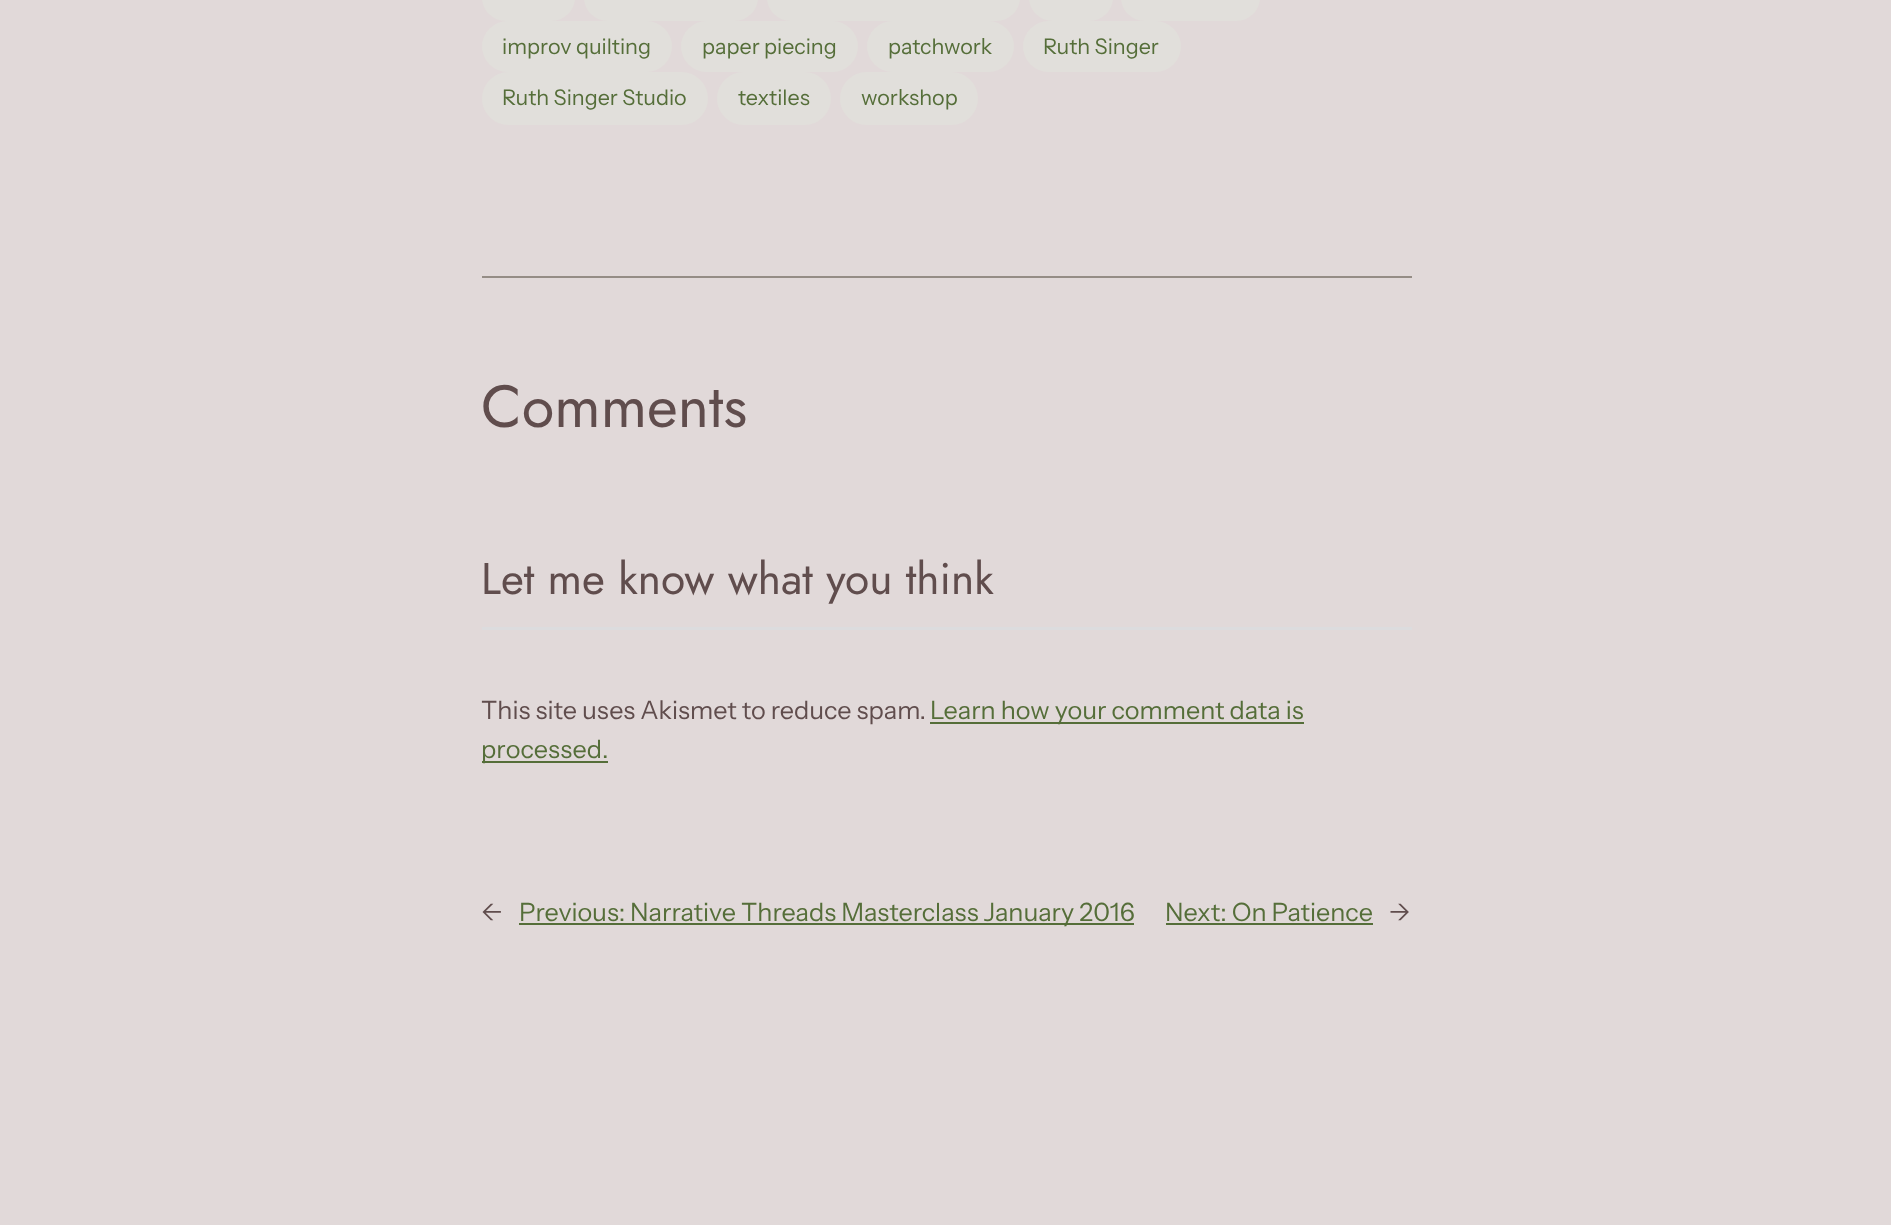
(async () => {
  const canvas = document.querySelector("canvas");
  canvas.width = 1891;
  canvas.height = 1225;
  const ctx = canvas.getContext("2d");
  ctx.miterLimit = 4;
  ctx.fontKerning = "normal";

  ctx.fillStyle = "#e1d9d9";
  ctx.fillRect(0, 0, 1891, 1225);
  ctx.fillStyle = "#e1dfdb";
  ctx.beginPath();
  ctx.roundRect(482, -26, 93, 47, 25.5);
  ctx.fill();
  ctx.beginPath();
  ctx.roundRect(584, -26, 174, 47, 25.5);
  ctx.fill();
  ctx.beginPath();
  ctx.roundRect(767, -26, 253, 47, 25.5);
  ctx.fill();
  ctx.beginPath();
  ctx.roundRect(1029, -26, 84, 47, 25.5);
  ctx.fill();
  ctx.beginPath();
  ctx.roundRect(1121, -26, 139, 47, 25.5);
  ctx.fill();
  ctx.beginPath();
  ctx.roundRect(482, 21, 190, 51, 25.5);
  ctx.fill();
  ctx.beginPath();
  ctx.roundRect(681, 21, 177, 51, 25.5);
  ctx.fill();
  ctx.beginPath();
  ctx.roundRect(867, 21, 147, 51, 25.5);
  ctx.fill();
  ctx.beginPath();
  ctx.roundRect(1023, 21, 158, 51, 25.5);
  ctx.fill();
  ctx.beginPath();
  ctx.roundRect(482, 72, 226, 53, 26.5);
  ctx.fill();
  ctx.beginPath();
  ctx.roundRect(717, 72, 114, 53, 26.5);
  ctx.fill();
  ctx.beginPath();
  ctx.roundRect(840, 72, 138, 53, 26.5);
  ctx.fill();
  for (const [x, y, w, h, color] of [
    [482, 276, 930, 2, "#958d86"],
    [482, 627, 930, 3, "#dcdcde"],
    [930, 722, 374, 2, "#556e39"],
    [482, 761, 126, 2, "#556e39"],
    [519, 923, 615, 2, "#556e39"],
    [1166, 923, 207, 2, "#556e39"],
  ]) {
    ctx.fillStyle = color;
    ctx.fillRect(x, y, w, h);
  }
  ctx.font = "21.5px Instrument Sans";
  for (const [text, x, y] of [
    ["improv quilting", 502, 54],
    ["paper piecing", 702, 54],
    ["patchwork", 888, 54],
    ["Ruth Singer", 1043, 54],
    ["Ruth Singer Studio", 502, 105],
    ["textiles", 738, 105],
    ["workshop", 861, 105],
  ]) {
    ctx.fillText(text, x, y);
  }
  ctx.font = "59.5px Jost";
  ctx.fillStyle = "#604d4d";
  ctx.fillText("Comments", 481, 427);
  ctx.font = "44.25px Jost";
  ctx.fillText("Let me know what you think", 481, 594);
  ctx.font = "25.2px Instrument Sans";
  ctx.fillText("This site uses Akismet to reduce spam.", 481, 719);
  ctx.fillStyle = "#556e39";
  ctx.fillText("Learn how your comment data is", 930, 719);
  ctx.fillText("processed.", 481, 758);
  ctx.fillStyle = "#604d4d";
  ctx.fillText("←", 481, 921);
  ctx.fillStyle = "#556e39";
  for (const [text, x, y] of [
    ["Previous:", 519, 921],
    ["Narrative Threads Masterclass January 2016", 630, 921],
    ["Next: On Patience", 1165, 921],
  ]) {
    ctx.fillText(text, x, y);
  }
  ctx.fillStyle = "#604d4d";
  ctx.fillText("→", 1389, 921);
})();
